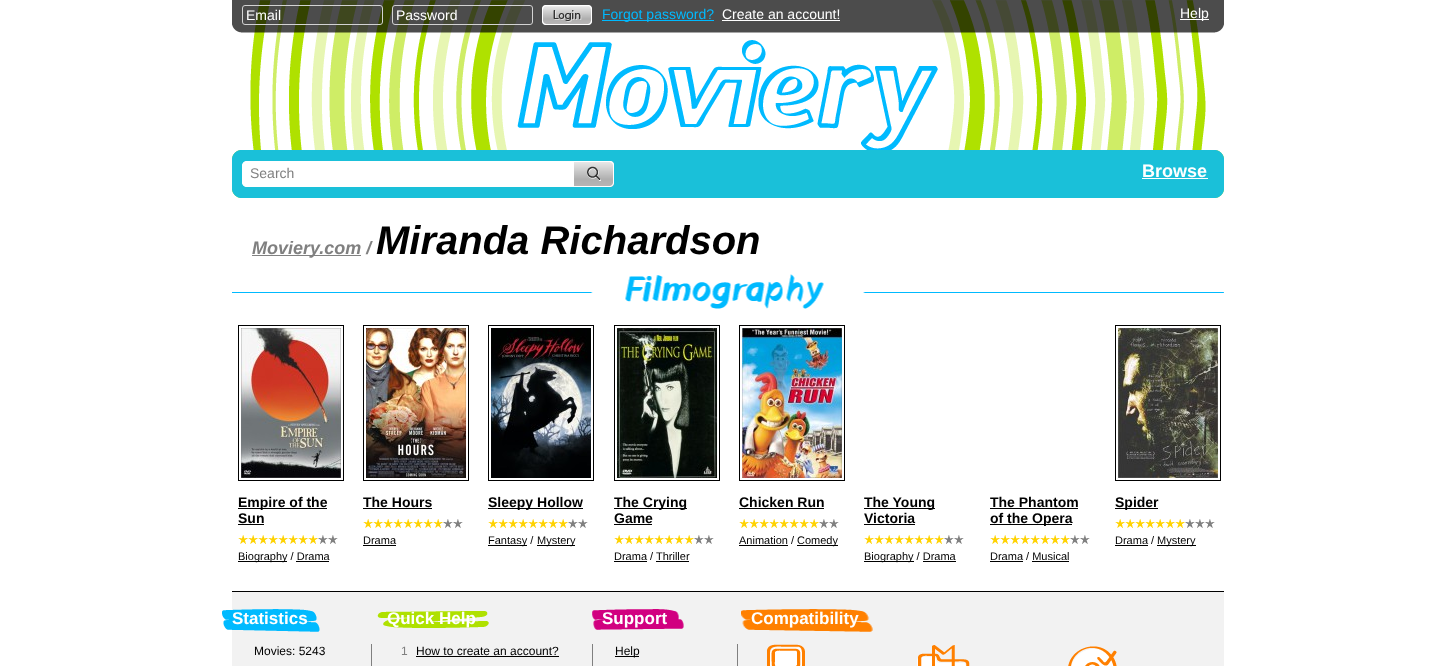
(async () => {
  const canvas = document.querySelector("canvas");
  canvas.width = 1455;
  canvas.height = 666;
  const ctx = canvas.getContext("2d");
  ctx.miterLimit = 4;
  ctx.fontKerning = "normal";
  async function loadImage(src) {
    const img = new Image();
    img.src = src;
    await img.decode();
    return img;
  }

  ctx.fillStyle = "#ffffff";
  ctx.fillRect(0, 0, 1455, 666);
  ctx.drawImage(await loadImage("img/1.png"), 250, 0, 956, 150);
  ctx.drawImage(await loadImage("img/2.png"), 232, 0, 992, 33);
  ctx.beginPath();
  ctx.roundRect(242.5, 5.5, 140, 19, 2.5);
  ctx.strokeStyle = "#d2d2d2";
  ctx.stroke();
  ctx.beginPath();
  ctx.roundRect(392.5, 5.5, 140, 19, 2.5);
  ctx.stroke();
  ctx.drawImage(await loadImage("img/3.png"), 542, 5, 50, 20);
  for (const [x, y, w, h, color] of [
    [602, 20, 112, 1, "#00baff"],
    [722, 20, 118, 1, "#ffffff"],
    [1180, 19, 29, 1, "#ffffff"],
    [240, 150, 976, 48, "#1ac0d9"],
  ]) {
    ctx.fillStyle = color;
    ctx.fillRect(x, y, w, h);
  }
  ctx.drawImage(await loadImage("img/4.png"), 232, 150, 8, 48);
  ctx.drawImage(await loadImage("img/5.png"), 242, 161, 332, 26);
  ctx.drawImage(await loadImage("img/6.png"), 574, 161, 40, 26);
  ctx.fillStyle = "#ffffff";
  ctx.fillRect(1142, 178, 66, 1);
  ctx.drawImage(await loadImage("img/7.png"), 1216, 150, 8, 48);
  ctx.fillStyle = "#808080";
  ctx.fillRect(252, 255, 109, 1);
  ctx.drawImage(await loadImage("img/8.png"), 232, 274, 992, 35);
  ctx.strokeStyle = "#000000";
  ctx.strokeRect(238.5, 325.5, 105, 155);
  ctx.drawImage(await loadImage("img/9.png"), 241, 328, 100, 150);
  ctx.fillStyle = "#000000";
  ctx.fillRect(238, 508, 89, 1);
  ctx.fillRect(238, 524, 26, 1);
  ctx.drawImage(await loadImage("img/10.png"), 318, 535, 20, 9);
  ctx.drawImage(await loadImage("img/11.png"), 238, 535, 80, 9);
  ctx.fillRect(238, 561, 49, 1);
  ctx.fillRect(296, 561, 33, 1);
  ctx.strokeRect(363.5, 325.5, 105, 155);
  ctx.drawImage(await loadImage("img/12.png"), 366, 328, 100, 150);
  ctx.fillRect(363, 508, 69, 1);
  ctx.drawImage(await loadImage("img/10.png"), 443, 519, 20, 9);
  ctx.drawImage(await loadImage("img/11.png"), 363, 519, 80, 9);
  ctx.fillRect(363, 545, 33, 1);
  ctx.strokeRect(488.5, 325.5, 105, 155);
  ctx.drawImage(await loadImage("img/13.png"), 491, 328, 100, 150);
  ctx.fillRect(488, 508, 95, 1);
  ctx.drawImage(await loadImage("img/10.png"), 568, 519, 20, 9);
  ctx.drawImage(await loadImage("img/11.png"), 488, 519, 80, 9);
  ctx.fillRect(488, 545, 39, 1);
  ctx.fillRect(537, 545, 38, 1);
  ctx.strokeRect(614.5, 325.5, 105, 155);
  ctx.drawImage(await loadImage("img/14.png"), 617, 328, 100, 150);
  ctx.fillRect(614, 508, 73, 1);
  ctx.fillRect(614, 524, 38, 1);
  ctx.drawImage(await loadImage("img/10.png"), 694, 535, 20, 9);
  ctx.drawImage(await loadImage("img/11.png"), 614, 535, 80, 9);
  ctx.fillRect(614, 561, 33, 1);
  ctx.fillRect(656, 561, 33, 1);
  ctx.strokeRect(739.5, 325.5, 105, 155);
  ctx.drawImage(await loadImage("img/15.png"), 742, 328, 100, 150);
  ctx.fillRect(739, 508, 85, 1);
  ctx.drawImage(await loadImage("img/10.png"), 819, 519, 20, 9);
  ctx.drawImage(await loadImage("img/11.png"), 739, 519, 80, 9);
  for (const [x, y, w, h, color] of [
    [739, 545, 49, 1, "#000000"],
    [797, 545, 41, 1, "#000000"],
    [864, 508, 71, 1, "#000000"],
    [864, 524, 51, 1, "#000000"],
  ]) {
    ctx.fillStyle = color;
    ctx.fillRect(x, y, w, h);
  }
  ctx.drawImage(await loadImage("img/10.png"), 944, 535, 20, 9);
  ctx.drawImage(await loadImage("img/11.png"), 864, 535, 80, 9);
  for (const [x, y, w, h, color] of [
    [864, 561, 50, 1, "#000000"],
    [923, 561, 33, 1, "#000000"],
    [990, 508, 88, 1, "#000000"],
    [990, 524, 82, 1, "#000000"],
  ]) {
    ctx.fillStyle = color;
    ctx.fillRect(x, y, w, h);
  }
  ctx.drawImage(await loadImage("img/10.png"), 1070, 535, 20, 9);
  ctx.drawImage(await loadImage("img/11.png"), 990, 535, 80, 9);
  ctx.fillRect(990, 561, 33, 1);
  ctx.fillRect(1032, 561, 37, 1);
  ctx.strokeRect(1115.5, 325.5, 105, 155);
  ctx.drawImage(await loadImage("img/16.png"), 1118, 328, 100, 150);
  ctx.fillRect(1115, 508, 43, 1);
  ctx.drawImage(await loadImage("img/17.png"), 1185, 519, 30, 9);
  ctx.drawImage(await loadImage("img/18.png"), 1115, 519, 70, 9);
  for (const [x, y, w, h, color] of [
    [1115, 545, 33, 1, "#000000"],
    [1157, 545, 39, 1, "#000000"],
    [232, 592, 992, 74, "#f2f2f2"],
    [232, 591, 992, 1, "#000000"],
  ]) {
    ctx.fillStyle = color;
    ctx.fillRect(x, y, w, h);
  }
  ctx.drawImage(await loadImage("img/19.png"), 222, 609, 98, 23);
  ctx.drawImage(await loadImage("img/20.png"), 377, 611, 112, 17);
  ctx.drawImage(await loadImage("img/21.png"), 592, 609, 92, 21);
  ctx.drawImage(await loadImage("img/22.png"), 741, 609, 132, 23);
  for (const [x, y, w, h, color] of [
    [371, 644, 1, 22, "#808080"],
    [416, 656, 143, 1, "#000000"],
    [592, 644, 1, 22, "#808080"],
    [615, 656, 24, 1, "#000000"],
    [737, 644, 1, 22, "#808080"],
  ]) {
    ctx.fillStyle = color;
    ctx.fillRect(x, y, w, h);
  }
  ctx.drawImage(await loadImage("img/23.png"), 767, 644, 38, 22);
  ctx.drawImage(await loadImage("img/24.png"), 917, 645, 53, 21);
  ctx.drawImage(await loadImage("img/25.png"), 1068, 646, 49, 20);
  ctx.font = "14px Liberation Sans";
  ctx.fillStyle = "#ffffff";
  ctx.fillText("Email", 246, 20);
  ctx.fillText("Password", 396, 20);
  ctx.fillStyle = "#00baff";
  ctx.fillText("Forgot password?", 602, 19);
  ctx.fillStyle = "#ffffff";
  ctx.fillText("Create an account!", 722, 19);
  ctx.fillText("Help", 1180, 18);
  ctx.fillStyle = "#808080";
  ctx.fillText("Search", 250, 178);
  ctx.font = "bold 18px Liberation Sans";
  ctx.fillStyle = "#ffffff";
  ctx.fillText("Browse", 1142, 177);
  ctx.font = "italic bold 18px Liberation Sans";
  ctx.fillStyle = "#808080";
  ctx.fillText("Moviery.com /", 252, 254);
  ctx.font = "italic bold 40px Liberation Sans";
  ctx.fillStyle = "#000000";
  ctx.fillText("Miranda Richardson", 376, 254);
  ctx.font = "bold 14px Liberation Sans";
  ctx.fillText("Empire of the", 238, 507);
  ctx.fillText("Sun", 238, 523);
  ctx.font = "11px Liberation Sans";
  ctx.fillText("Biography / Drama", 238, 560);
  ctx.font = "bold 14px Liberation Sans";
  ctx.fillText("The Hours", 363, 507);
  ctx.font = "11px Liberation Sans";
  ctx.fillText("Drama", 363, 544);
  ctx.font = "bold 14px Liberation Sans";
  ctx.fillText("Sleepy Hollow", 488, 507);
  ctx.font = "11px Liberation Sans";
  ctx.fillText("Fantasy /", 488, 544);
  ctx.fillText("Mystery", 537, 544);
  ctx.font = "bold 14px Liberation Sans";
  ctx.fillText("The Crying", 614, 507);
  ctx.fillText("Game", 614, 523);
  ctx.font = "11px Liberation Sans";
  ctx.fillText("Drama / Thriller", 614, 560);
  ctx.font = "bold 14px Liberation Sans";
  ctx.fillText("Chicken Run", 739, 507);
  ctx.font = "11px Liberation Sans";
  ctx.fillText("Animation /", 739, 544);
  ctx.fillText("Comedy", 797, 544);
  ctx.font = "bold 14px Liberation Sans";
  ctx.fillText("The Young", 864, 507);
  ctx.fillText("Victoria", 864, 523);
  ctx.font = "11px Liberation Sans";
  ctx.fillText("Biography / Drama", 864, 560);
  ctx.font = "bold 14px Liberation Sans";
  ctx.fillText("The Phantom", 990, 507);
  ctx.fillText("of the Opera", 990, 523);
  ctx.font = "11px Liberation Sans";
  ctx.fillText("Drama / Musical", 990, 560);
  ctx.font = "bold 14px Liberation Sans";
  ctx.fillText("Spider", 1115, 507);
  ctx.font = "11px Liberation Sans";
  ctx.fillText("Drama /", 1115, 544);
  ctx.fillText("Mystery", 1157, 544);
  ctx.font = "bold 17px Liberation Sans";
  ctx.fillStyle = "#ffffff";
  for (const [text, x, y] of [
    ["Statistics", 232, 624],
    ["Quick Help", 387, 624],
    ["Support", 602, 624],
    ["Compatibility", 751, 624],
  ]) {
    ctx.fillText(text, x, y);
  }
  ctx.font = "12px Liberation Sans";
  ctx.fillStyle = "#000000";
  ctx.fillText("Movies: 5243", 254, 655);
  ctx.fillStyle = "#808080";
  ctx.fillText("1", 401, 655);
  ctx.fillStyle = "#000000";
  ctx.fillText("How to create an account?", 416, 655);
  ctx.fillText("Help", 615, 655);
})();
